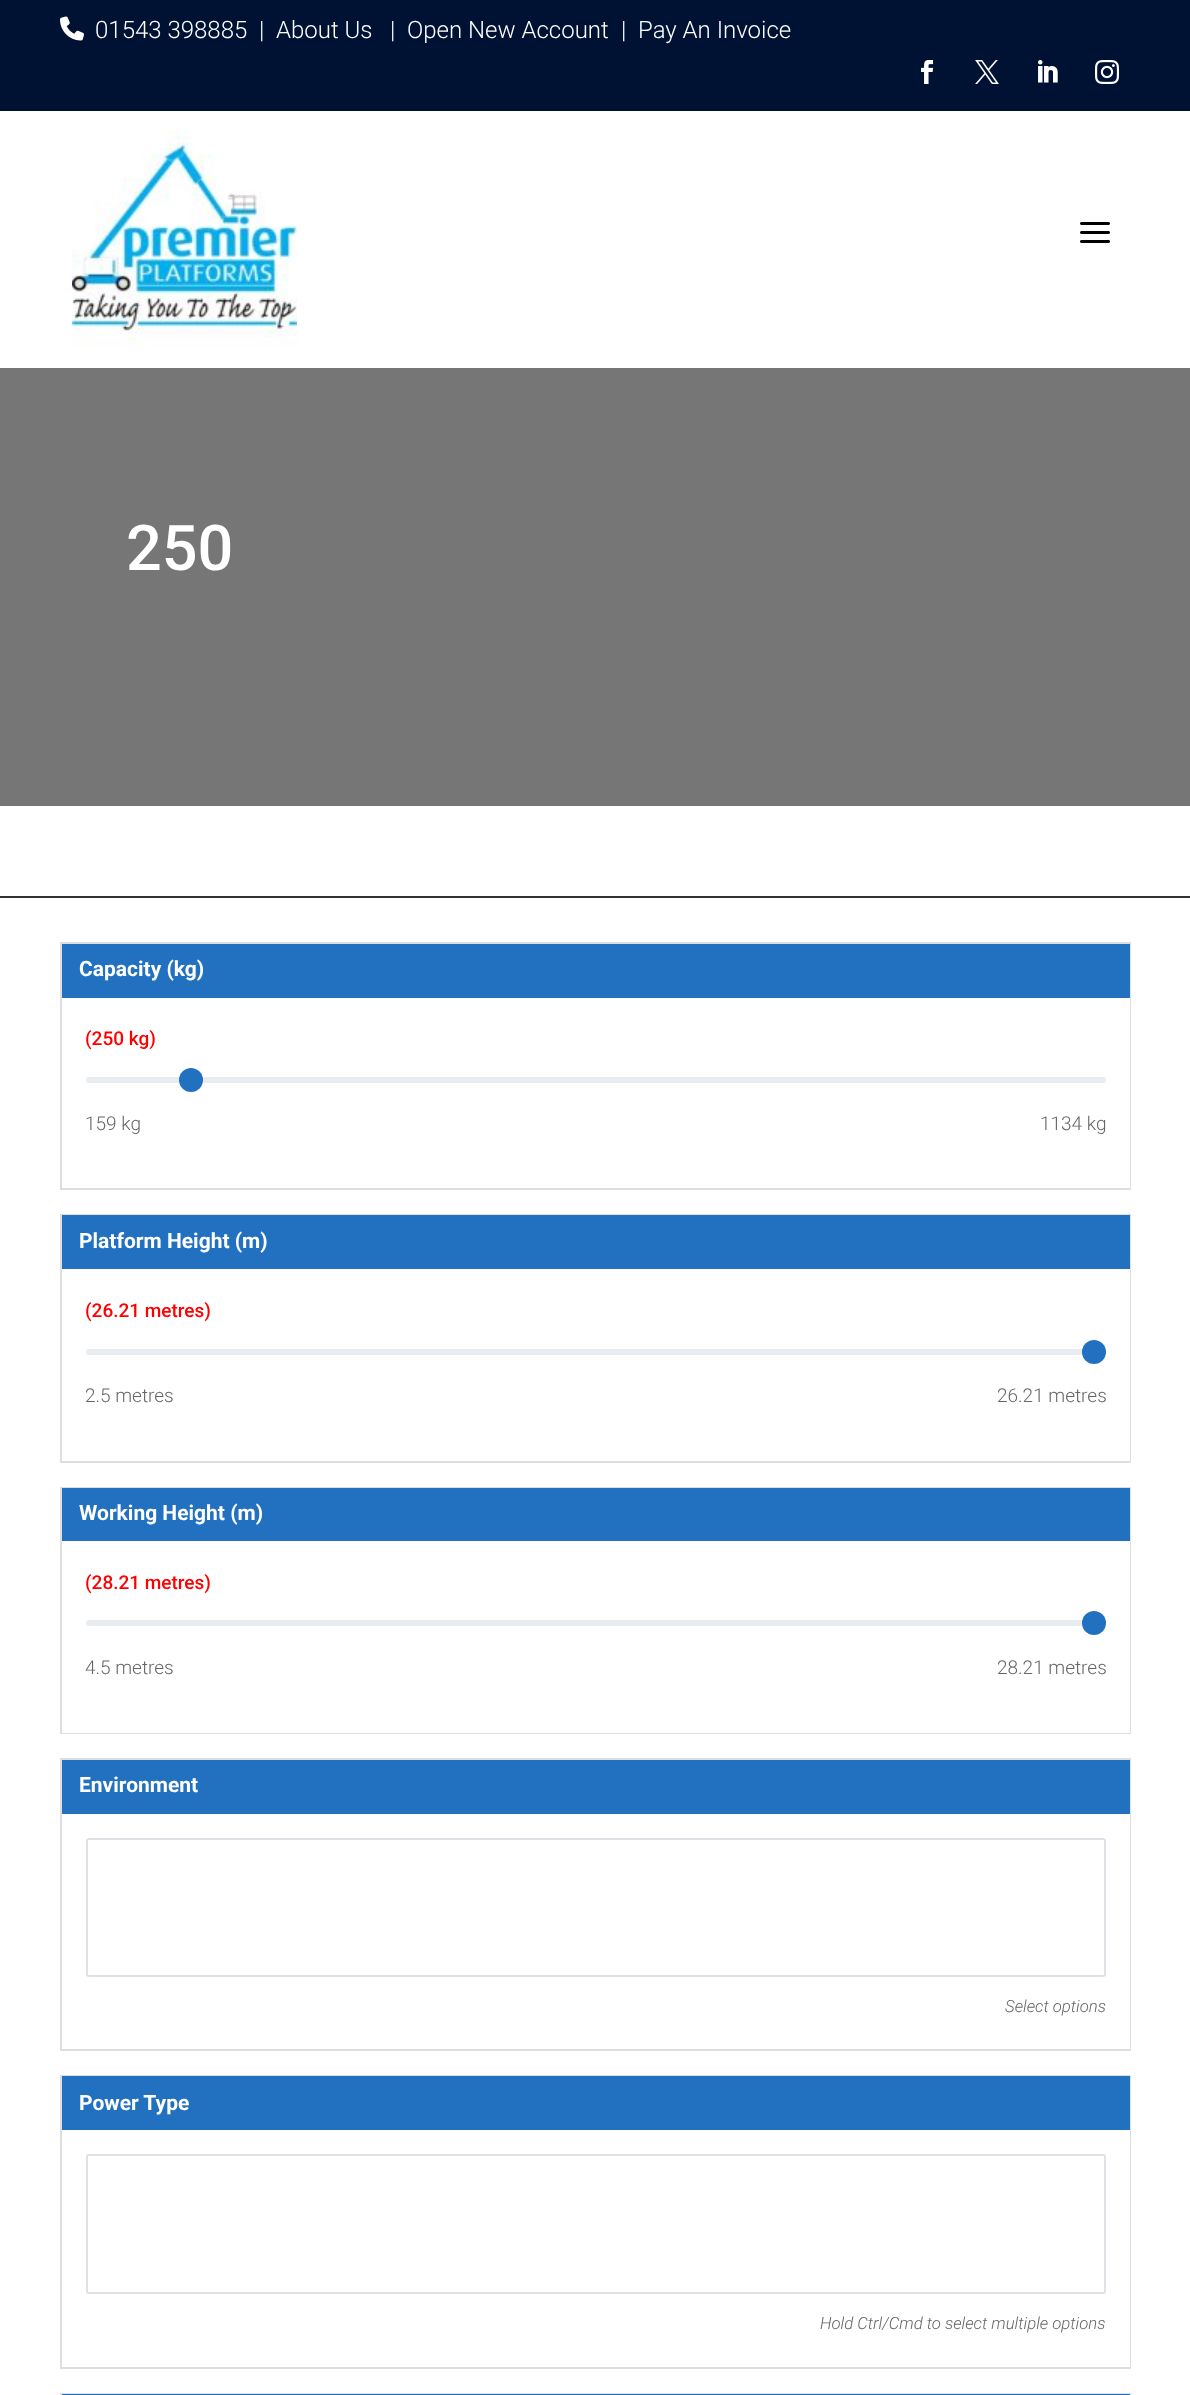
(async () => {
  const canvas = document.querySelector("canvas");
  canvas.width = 1190;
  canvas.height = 2395;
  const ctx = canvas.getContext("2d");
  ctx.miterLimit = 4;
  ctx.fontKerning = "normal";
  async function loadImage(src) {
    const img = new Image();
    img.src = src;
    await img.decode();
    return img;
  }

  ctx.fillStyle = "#ffffff";
  ctx.fillRect(0, 0, 1190, 2395);
  ctx.fillStyle = "#001234";
  ctx.fillRect(0, 0, 1190, 111);
  ctx.drawImage(await loadImage("img/1.png"), 60, 16, 24, 25);
  ctx.drawImage(await loadImage("img/2.png"), 921, 60, 13, 24);
  ctx.drawImage(await loadImage("img/3.png"), 975, 60, 24, 24);
  ctx.drawImage(await loadImage("img/4.png"), 1038, 60, 20, 23);
  ctx.drawImage(await loadImage("img/5.png"), 1095, 60, 24, 24);
  ctx.drawImage(await loadImage("img/6.png"), 72, 130, 225, 217);
  ctx.drawImage(await loadImage("img/7.png"), 1080, 222, 30, 21);
  ctx.fillStyle = "#767676";
  ctx.fillRect(0, 368, 1190, 438);
  ctx.fillStyle = "#333333";
  ctx.fillRect(0, 896, 1190, 2);
  ctx.strokeStyle = "#dedede";
  ctx.lineWidth = 2;
  ctx.strokeRect(61, 943, 1069, 246);
  ctx.fillStyle = "#2271c1";
  ctx.fillRect(62, 944, 1068, 54);
  ctx.fillStyle = "#ffffff";
  ctx.fillRect(1129, 998, 1, 190);
  ctx.fillStyle = "#e9ecef";
  ctx.beginPath();
  ctx.roundRect(86, 1077, 1020, 6, 3);
  ctx.fill();
  ctx.fillStyle = "#2271c1";
  ctx.beginPath();
  ctx.arc(191, 1080, 12, 0, Math.PI * 2);
  ctx.fill();
  ctx.strokeRect(61, 1215, 1069, 247);
  ctx.fillRect(62, 1215, 1068, 54);
  ctx.fillStyle = "#ffffff";
  ctx.fillRect(1129, 1269, 1, 192);
  ctx.fillStyle = "#e9ecef";
  ctx.beginPath();
  ctx.roundRect(86, 1349, 1020, 6, 3);
  ctx.fill();
  ctx.fillStyle = "#2271c1";
  ctx.beginPath();
  ctx.arc(1094, 1352, 12, 0, Math.PI * 2);
  ctx.fill();
  ctx.strokeRect(61, 1488, 1069, 245);
  ctx.fillRect(62, 1488, 1068, 53);
  ctx.fillStyle = "#ffffff";
  ctx.fillRect(62, 1541, 1068, 192);
  ctx.fillStyle = "#e9ecef";
  ctx.beginPath();
  ctx.roundRect(86, 1620, 1020, 6, 3);
  ctx.fill();
  ctx.fillStyle = "#2271c1";
  ctx.beginPath();
  ctx.arc(1094, 1623, 12, 0, Math.PI * 2);
  ctx.fill();
  ctx.strokeRect(61, 1759, 1069, 291);
  ctx.fillRect(62, 1760, 1068, 54);
  ctx.fillStyle = "#ffffff";
  ctx.fillRect(1129, 1814, 1, 235);
  ctx.beginPath();
  ctx.roundRect(87, 1839, 1018, 137, 2);
  ctx.strokeStyle = "#dee2e6";
  ctx.stroke();
  ctx.strokeStyle = "#dedede";
  ctx.strokeRect(61, 2076, 1069, 292);
  ctx.fillStyle = "#2271c1";
  ctx.fillRect(62, 2076, 1068, 54);
  ctx.fillStyle = "#ffffff";
  ctx.fillRect(1129, 2130, 1, 237);
  ctx.beginPath();
  ctx.roundRect(87, 2155, 1018, 138, 2);
  ctx.strokeStyle = "#dee2e6";
  ctx.stroke();
  ctx.strokeStyle = "#dedede";
  ctx.strokeRect(61, 2394, 1069, 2);
  ctx.fillStyle = "#2271c1";
  ctx.fillRect(62, 2394, 1068, 1);
  ctx.font = "300 24px Roboto";
  ctx.fillStyle = "#ffffff";
  for (const [text, x, y] of [
    ["01543 398885", 95, 38],
    ["|", 259, 38],
    ["About Us", 276, 38],
    ["|", 390, 38],
    ["Open New Account", 407, 38],
    ["|", 621, 38],
    ["Pay An Invoice", 638, 38],
  ]) {
    ctx.fillText(text, x, y);
  }
  ctx.font = "500 63px Roboto";
  ctx.fillText("250", 126, 570);
  ctx.font = "bold 21px Roboto";
  ctx.fillText("Capacity (kg)", 79, 976);
  ctx.font = "500 19px Roboto";
  ctx.fillStyle = "#ff0000";
  ctx.fillText("(250 kg)", 85, 1045);
  ctx.font = "300 19px Roboto";
  ctx.fillStyle = "#666666";
  ctx.fillText("159 kg", 85, 1130);
  ctx.fillText("1134 kg", 1040, 1130);
  ctx.font = "bold 21px Roboto";
  ctx.fillStyle = "#ffffff";
  ctx.fillText("Platform Height (m)", 79, 1248);
  ctx.font = "500 19px Roboto";
  ctx.fillStyle = "#ff0000";
  ctx.fillText("(26.21 metres)", 85, 1317);
  ctx.font = "300 19px Roboto";
  ctx.fillStyle = "#666666";
  ctx.fillText("2.5 metres", 85, 1402);
  ctx.fillText("26.21 metres", 997, 1402);
  ctx.font = "bold 21px Roboto";
  ctx.fillStyle = "#ffffff";
  ctx.fillText("Working Height (m)", 79, 1520);
  ctx.font = "500 19px Roboto";
  ctx.fillStyle = "#ff0000";
  ctx.fillText("(28.21 metres)", 85, 1589);
  ctx.font = "300 19px Roboto";
  ctx.fillStyle = "#666666";
  ctx.fillText("4.5 metres", 85, 1674);
  ctx.fillText("28.21 metres", 997, 1674);
  ctx.font = "bold 21px Roboto";
  ctx.fillStyle = "#ffffff";
  ctx.fillText("Environment", 79, 1792);
  ctx.font = "italic 300 16.75px Roboto";
  ctx.fillStyle = "#666666";
  ctx.fillText("Select options", 1005, 2012);
  ctx.font = "bold 21px Roboto";
  ctx.fillStyle = "#ffffff";
  ctx.fillText("Power Type", 79, 2110);
  ctx.font = "italic 300 16.75px Roboto";
  ctx.fillStyle = "#666666";
  ctx.fillText("Hold Ctrl/Cmd to select multiple options", 820, 2329);
})();
